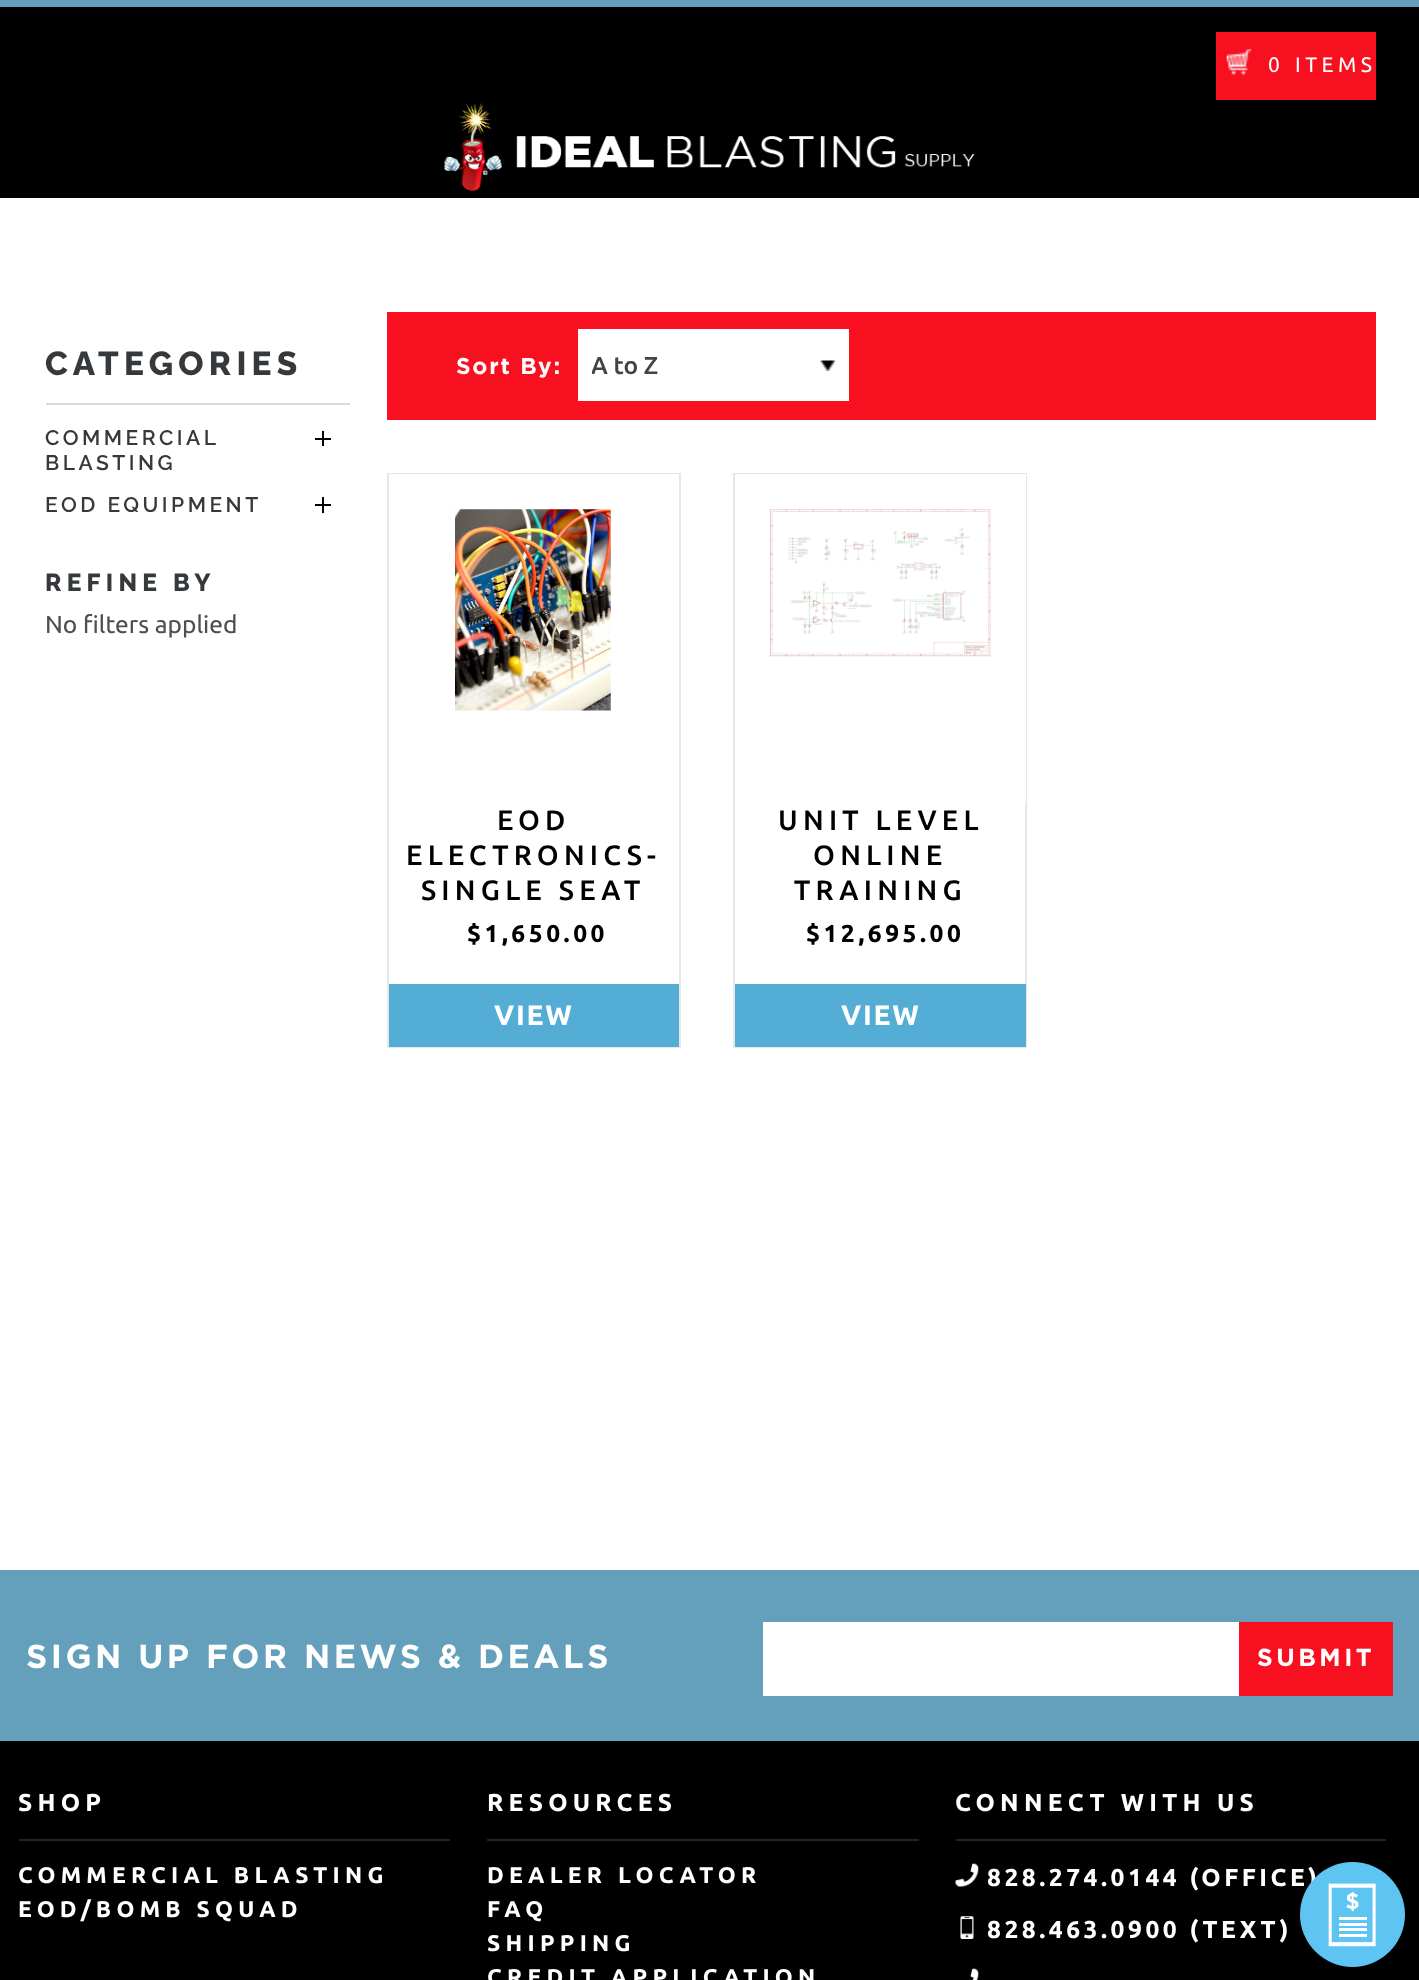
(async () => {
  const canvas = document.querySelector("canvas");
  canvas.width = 1419;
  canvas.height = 1980;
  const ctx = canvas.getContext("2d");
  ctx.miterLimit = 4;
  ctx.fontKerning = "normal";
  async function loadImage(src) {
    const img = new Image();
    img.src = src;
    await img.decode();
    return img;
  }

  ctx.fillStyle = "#ffffff";
  ctx.fillRect(0, 0, 1419, 1980);
  for (const [x, y, w, h, color] of [
    [0, 7, 1419, 191, "#000000"],
    [0, 0, 1419, 7, "#64a0bb"],
    [1216, 32, 160, 68, "#f80f20"],
  ]) {
    ctx.fillStyle = color;
    ctx.fillRect(x, y, w, h);
  }
  ctx.drawImage(await loadImage("img/1.png"), 1226, 49, 26, 27);
  ctx.drawImage(await loadImage("img/2.png"), 444, 103, 531, 88);
  for (const [x, y, w, h, color] of [
    [46, 403, 304, 2, "#dadbde"],
    [322, 431, 2, 15, "#000000"],
    [315, 438, 16, 2, "#000000"],
    [322, 497, 2, 16, "#000000"],
    [315, 504, 16, 2, "#000000"],
    [387, 312, 989, 108, "#f80f20"],
    [578, 329, 271, 72, "#ffffff"],
  ]) {
    ctx.fillStyle = color;
    ctx.fillRect(x, y, w, h);
  }
  ctx.drawImage(await loadImage("img/3.png"), 820, 360, 15, 11);
  ctx.strokeStyle = "#e7e7e7";
  ctx.lineWidth = 2;
  ctx.strokeRect(388, 474, 292, 573);
  ctx.fillRect(389, 474, 290, 1);
  ctx.drawImage(await loadImage("img/4.png"), 455, 509, 156, 202);
  ctx.fillStyle = "#53add5";
  ctx.fillRect(389, 984, 290, 63);
  ctx.strokeRect(734, 474, 292, 573);
  ctx.fillStyle = "#ffffff";
  ctx.fillRect(735, 474, 291, 329);
  ctx.drawImage(await loadImage("img/5.png"), 770, 509, 221, 148);
  for (const [x, y, w, h, color] of [
    [735, 984, 291, 63, "#53add5"],
    [0, 1741, 1419, 239, "#000000"],
    [0, 1570, 1419, 171, "#64a0bb"],
    [763, 1622, 476, 74, "#ffffff"],
    [1239, 1622, 154, 74, "#f80f20"],
    [19, 1839, 431, 2, "#242423"],
    [487, 1839, 432, 2, "#242423"],
    [956, 1839, 430, 2, "#242423"],
  ]) {
    ctx.fillStyle = color;
    ctx.fillRect(x, y, w, h);
  }
  ctx.drawImage(await loadImage("img/6.png"), 955, 1863, 24, 24);
  ctx.drawImage(await loadImage("img/7.png"), 960, 1916, 14, 23);
  ctx.drawImage(await loadImage("img/8.png"), 970, 1968, 9, 12);
  ctx.letterSpacing = "4.5px";
  ctx.font = "21px Ubuntu";
  ctx.fillStyle = "#ffffff";
  ctx.fillText("0", 1268, 72);
  ctx.fillText("ITEMS", 1295, 72);
  ctx.letterSpacing = "5.25px";
  ctx.font = "800 33.25px Raleway";
  ctx.fillStyle = "#36393b";
  ctx.fillText("CATEGORIES", 45, 375);
  ctx.letterSpacing = "3.5px";
  ctx.font = "600 21px Raleway";
  for (const [text, x, y] of [
    ["COMMERCIAL", 45, 445],
    ["BLASTING", 45, 470],
    ["EOD EQUIPMENT", 45, 512],
  ]) {
    ctx.fillText(text, x, y);
  }
  ctx.letterSpacing = "5.25px";
  ctx.font = "800 24.5px Raleway";
  ctx.fillText("REFINE BY", 45, 591);
  ctx.letterSpacing = "0px";
  ctx.font = "24.5px Ubuntu";
  ctx.fillStyle = "#4f4f4f";
  ctx.fillText("No filters applied", 45, 633);
  ctx.letterSpacing = "1.75px";
  ctx.font = "bold 22.75px Gotham";
  ctx.fillStyle = "#ffffff";
  ctx.fillText("Sort By:", 456, 374);
  ctx.save();
  ctx.beginPath();
  ctx.rect(592, 352, 243, 28);
  ctx.clip();
  ctx.letterSpacing = "0px";
  ctx.font = "500 24.5px Ubuntu";
  ctx.fillStyle = "#444444";
  ctx.fillText("A to Z", 591, 374);
  ctx.restore();
  ctx.letterSpacing = "5.25px";
  ctx.font = "500 28px Ubuntu";
  ctx.fillStyle = "#000000";
  for (const [text, x, y] of [
    ["EOD", 497, 830],
    ["ELECTRONICS-", 406, 865],
    ["SINGLE SEAT", 421, 900],
  ]) {
    ctx.fillText(text, x, y);
  }
  ctx.letterSpacing = "3.5px";
  ctx.font = "bold 24.5px Ubuntu";
  ctx.fillText("$1,650.00", 467, 942);
  ctx.letterSpacing = "1.75px";
  ctx.font = "bold 28px Ubuntu";
  ctx.fillStyle = "#ffffff";
  ctx.fillText("VIEW", 494, 1025);
  ctx.letterSpacing = "5.25px";
  ctx.font = "500 28px Ubuntu";
  ctx.fillStyle = "#000000";
  for (const [text, x, y] of [
    ["UNIT LEVEL", 778, 830],
    ["ONLINE", 813, 865],
    ["TRAINING", 794, 900],
  ]) {
    ctx.fillText(text, x, y);
  }
  ctx.letterSpacing = "3.5px";
  ctx.font = "bold 24.5px Ubuntu";
  ctx.fillText("$12,695.00", 806, 942);
  ctx.letterSpacing = "1.75px";
  ctx.font = "bold 28px Ubuntu";
  ctx.fillStyle = "#ffffff";
  ctx.fillText("VIEW", 841, 1025);
  ctx.letterSpacing = "3.5px";
  ctx.font = "bold 33.25px Gotham";
  ctx.fillText("SIGN UP FOR NEWS & DEALS", 26, 1668);
  ctx.font = "bold 24.5px Gotham";
  ctx.fillText("SUBMIT", 1257, 1666);
  ctx.letterSpacing = "5.25px";
  ctx.font = "bold 24.5px Ubuntu";
  ctx.fillText("SHOP", 18, 1811);
  ctx.font = "bold 22.75px Ubuntu";
  ctx.fillText("COMMERCIAL BLASTING", 18, 1883);
  ctx.fillText("EOD/BOMB SQUAD", 18, 1917);
  ctx.font = "bold 24.5px Ubuntu";
  ctx.fillText("RESOURCES", 487, 1811);
  ctx.font = "bold 22.75px Ubuntu";
  for (const [text, x, y] of [
    ["DEALER LOCATOR", 487, 1883],
    ["FAQ", 487, 1917],
    ["SHIPPING", 487, 1951],
    ["CREDIT APPLICATION", 487, 1985],
  ]) {
    ctx.fillText(text, x, y);
  }
  ctx.font = "bold 24.5px Ubuntu";
  ctx.fillText("CONNECT WITH US", 955, 1811);
  ctx.letterSpacing = "3.5px";
  ctx.fillText("828.274.0144 (OFFICE)", 987, 1886);
  ctx.fillText("828.463.0900 (TEXT)", 987, 1938);
  ctx.fillStyle = "#5ec4f1";
  ctx.beginPath();
  ctx.arc(1352.5, 1914.5, 52.5, 0, Math.PI * 2);
  ctx.fill();
  ctx.drawImage(await loadImage("img/9.png"), 1328, 1883, 48, 64);
})();
